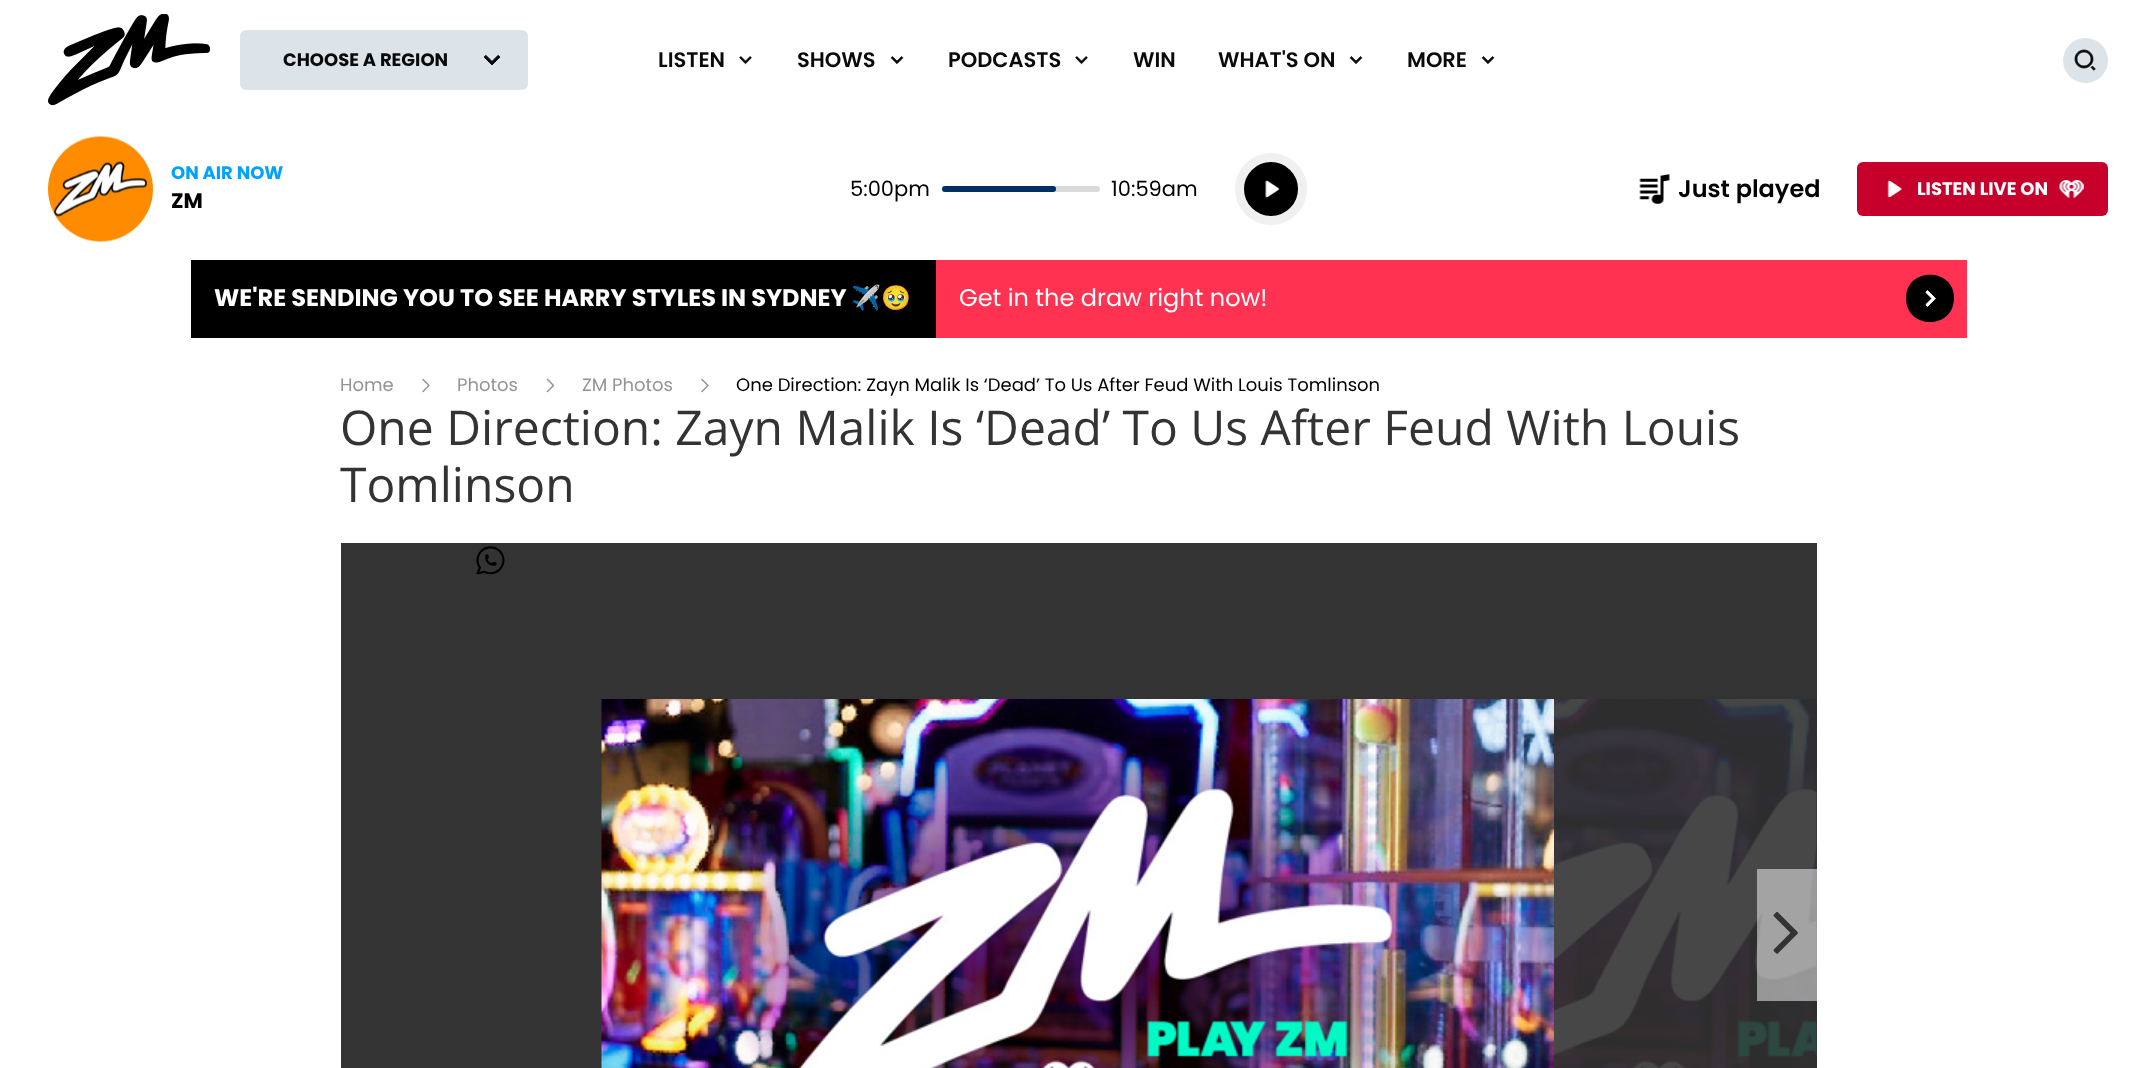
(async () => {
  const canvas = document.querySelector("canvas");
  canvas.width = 2155;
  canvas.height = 1068;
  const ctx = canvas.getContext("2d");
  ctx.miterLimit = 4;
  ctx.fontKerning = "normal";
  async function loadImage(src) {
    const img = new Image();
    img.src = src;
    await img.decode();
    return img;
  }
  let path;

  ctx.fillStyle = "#ffffff";
  ctx.fillRect(0, 0, 2155, 1068);
  ctx.drawImage(await loadImage("img/1.png"), 48, 14, 162, 92);
  ctx.fillStyle = "#dde4e9";
  ctx.beginPath();
  ctx.roundRect(240, 30, 288, 60, 6);
  ctx.fill();
  ctx.drawImage(await loadImage("img/2.png"), 483, 55, 18, 10);
  ctx.drawImage(await loadImage("img/3.png"), 739, 56, 14, 9);
  ctx.drawImage(await loadImage("img/4.png"), 890, 56, 14, 8);
  ctx.drawImage(await loadImage("img/3.png"), 1075, 56, 14, 9);
  ctx.drawImage(await loadImage("img/4.png"), 1349, 56, 14, 8);
  ctx.drawImage(await loadImage("img/4.png"), 1481, 56, 14, 8);
  ctx.beginPath();
  ctx.arc(2085.5, 60.5, 22.5, 0, Math.PI * 2);
  ctx.fill();
  ctx.drawImage(await loadImage("img/5.png"), 2074, 49, 22, 22);
  ctx.drawImage(await loadImage("img/6.png"), 48, 136, 105, 106);
  ctx.fillStyle = "#d9d9d9";
  ctx.beginPath();
  ctx.roundRect(942, 186, 158, 6, 3);
  ctx.fill();
  ctx.fillStyle = "#002f61";
  ctx.beginPath();
  ctx.roundRect(942, 186, 114, 6, 3);
  ctx.fill();
  ctx.fillStyle = "#000000";
  ctx.beginPath();
  ctx.arc(1271, 189, 31.5, 0, Math.PI * 2);
  ctx.fill();
  ctx.strokeStyle = "#f0f0f0";
  ctx.lineWidth = 9;
  ctx.stroke();
  ctx.drawImage(await loadImage("img/7.png"), 1265, 180, 15, 18);
  ctx.drawImage(await loadImage("img/8.png"), 1639, 174, 31, 30);
  ctx.fillStyle = "#c7002b";
  ctx.beginPath();
  ctx.roundRect(1857, 162, 251, 54, 6);
  ctx.fill();
  ctx.drawImage(await loadImage("img/9.png"), 1887, 180, 15, 18);
  ctx.drawImage(await loadImage("img/10.png"), 2059, 180, 25, 18);
  ctx.fillStyle = "#ff3351";
  ctx.fillRect(936, 260, 1031, 78);
  ctx.fillStyle = "#000000";
  ctx.fillRect(191, 260, 745, 78);
  path = new Path2D("M1906 298C1906 267 1954 267 1954 298C1954 330 1906 330 1906 298Z");
  ctx.fill(path);
  ctx.drawImage(await loadImage("img/11.png"), 1925, 290, 11, 17);
  ctx.drawImage(await loadImage("img/12.png"), 422, 378, 8, 15);
  ctx.drawImage(await loadImage("img/13.png"), 546, 378, 9, 15);
  ctx.drawImage(await loadImage("img/12.png"), 701, 378, 8, 15);
  ctx.fillStyle = "#333333";
  ctx.fillRect(341, 543, 1476, 525);
  ctx.drawImage(await loadImage("img/14.png"), 476, 546, 29, 29);
  ctx.drawImage(await loadImage("img/15.png"), 601, 699, 953, 369);
  ctx.drawImage(await loadImage("img/16.png"), 1554, 699, 263, 369);
  ctx.fillStyle = "rgba(255, 255, 255, 0.5)";
  ctx.fillRect(1757, 869, 60, 132);
  ctx.drawImage(await loadImage("img/17.png"), 1773, 912, 25, 42);
  ctx.font = "bold 18px Poppins";
  ctx.fillStyle = "#0a0a0a";
  ctx.fillText("CHOOSE A REGION", 283, 66);
  ctx.font = "600 21px Poppins";
  for (const [text, x, y] of [
    ["LISTEN", 658, 67],
    ["SHOWS", 797, 67],
    ["PODCASTS", 948, 67],
    ["WIN", 1133, 67],
    ["WHAT'S ON", 1218, 67],
    ["MORE", 1407, 67],
  ]) {
    ctx.fillText(text, x, y);
  }
  ctx.font = "bold 18px Poppins";
  ctx.fillStyle = "#00a2ff";
  ctx.fillText("ON AIR NOW", 171, 179);
  ctx.font = "bold 21px Poppins";
  ctx.fillStyle = "#000000";
  ctx.fillText("ZM", 171, 208);
  ctx.font = "21px Poppins";
  ctx.fillText("5:00pm", 850, 196);
  ctx.fillText("10:59am", 1111, 196);
  ctx.font = "600 24px Poppins";
  ctx.fillText("Just played", 1678, 197);
  ctx.font = "bold 18px Poppins";
  ctx.fillStyle = "#ffffff";
  ctx.fillText("LISTEN LIVE ON", 1917, 195);
  ctx.font = "bold 24px Poppins";
  ctx.fillText("WE'RE SENDING YOU TO SEE HARRY STYLES IN SYDNEY", 214, 306);
  ctx.font = "bold 24px Noto Color Emoji";
  ctx.fillText("✈️🥹", 851, 306);
  ctx.font = "24px Poppins";
  ctx.fillText("Get in the draw right now!", 959, 306);
  ctx.font = "18px Poppins";
  ctx.fillStyle = "#949494";
  for (const [text, x, y] of [
    ["Home", 340, 391],
    ["Photos", 457, 391],
    ["ZM Photos", 582, 391],
  ]) {
    ctx.fillText(text, x, y);
  }
  ctx.fillStyle = "#000000";
  ctx.fillText("One Direction: Zayn Malik Is ‘Dead’ To Us After Feud With Louis Tomlinson", 736, 391);
  ctx.font = "48px Open Sans";
  ctx.fillStyle = "#333333";
  ctx.fillText("One Direction: Zayn Malik Is ‘Dead’ To Us After Feud With Louis", 340, 445);
  ctx.fillText("Tomlinson", 340, 502);
})();
